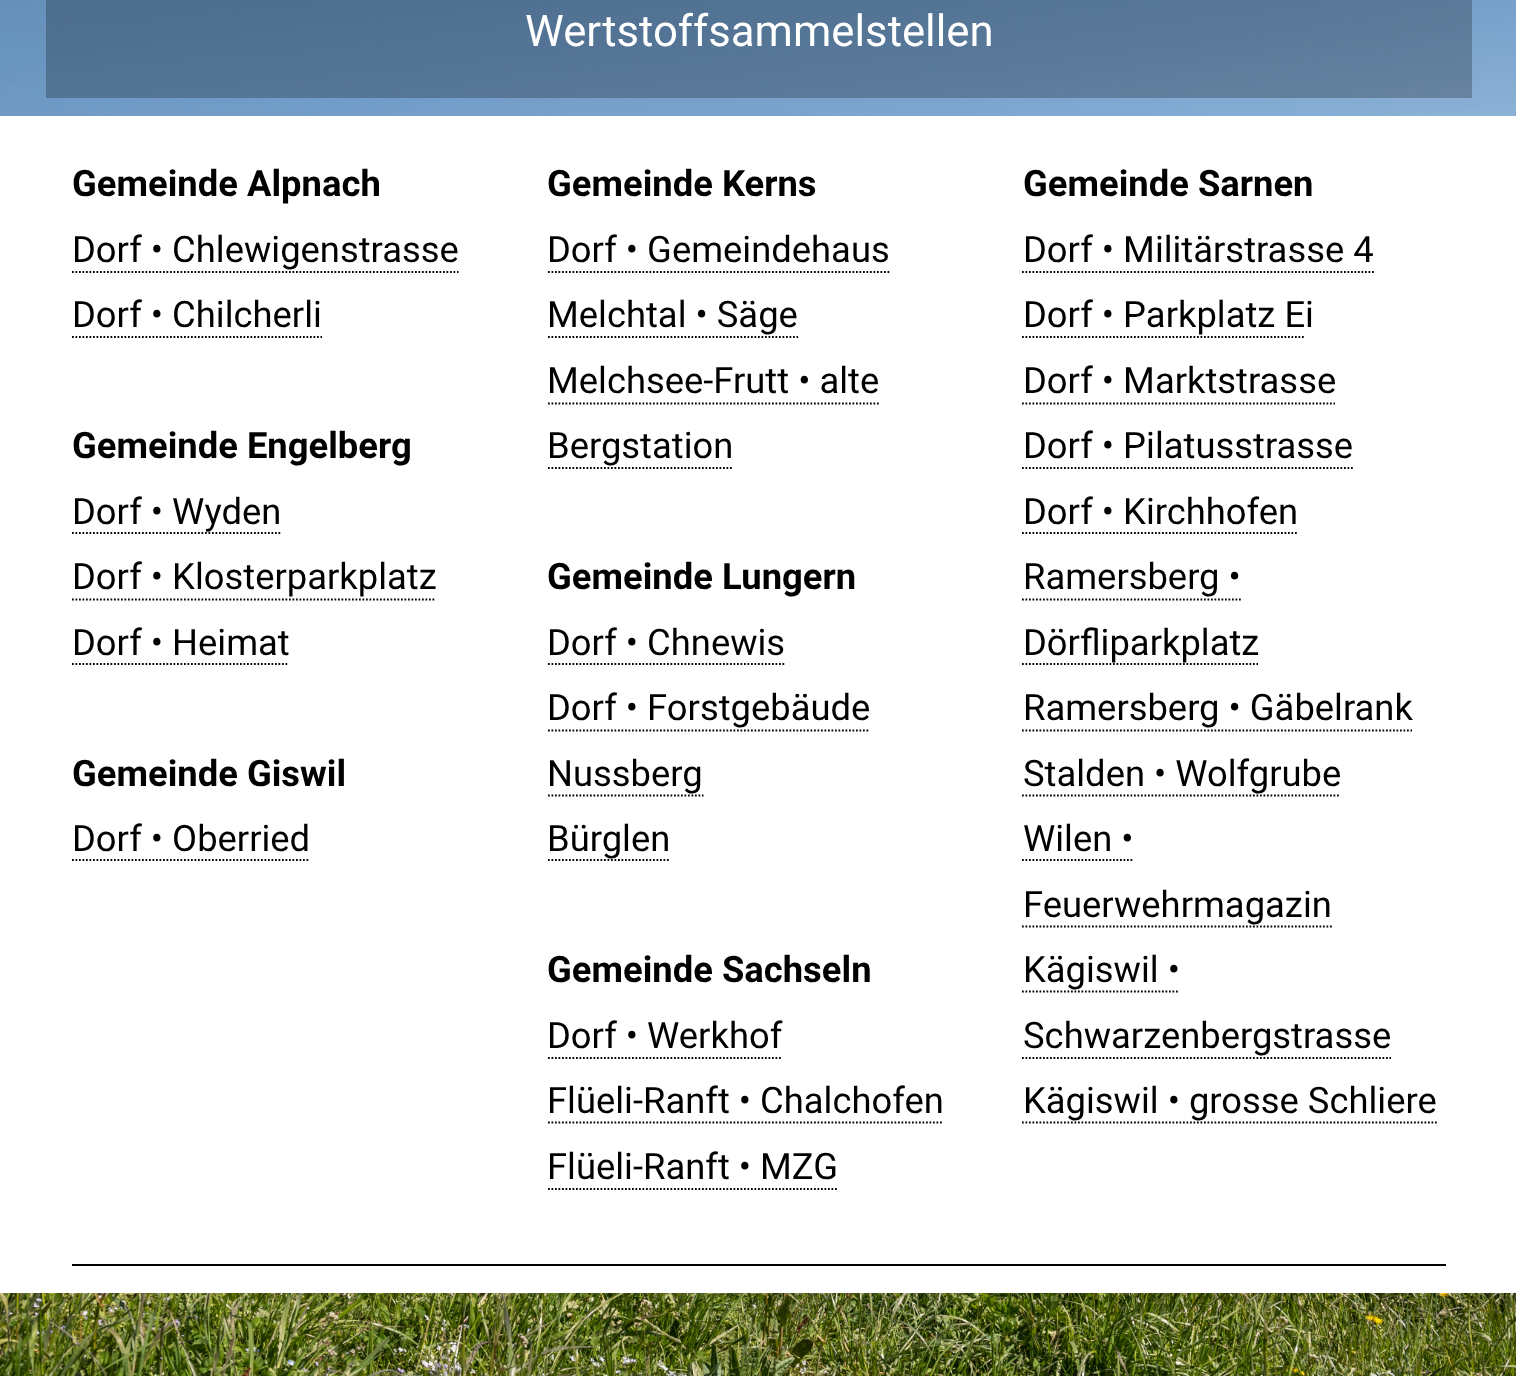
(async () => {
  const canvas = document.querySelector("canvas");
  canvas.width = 1516;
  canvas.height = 1376;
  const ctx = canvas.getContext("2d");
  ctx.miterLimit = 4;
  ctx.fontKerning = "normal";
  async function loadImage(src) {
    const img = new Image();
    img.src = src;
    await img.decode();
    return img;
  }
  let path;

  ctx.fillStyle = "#ffffff";
  ctx.fillRect(0, 0, 1516, 1376);
  ctx.drawImage(await loadImage("img/1.png"), 0, 0, 1516, 1376);
  ctx.fillStyle = "rgba(0, 0, 0, 0.24)";
  ctx.fillRect(46, 0, 1426, 98);
  ctx.fillStyle = "#ffffff";
  ctx.fillRect(0, 116, 1516, 1177);
  path = new Path2D("M72 272H458.5");
  ctx.strokeStyle = "#000000";
  ctx.lineWidth = 1.8;
  ctx.setLineDash([1.75, 1.75]);
  ctx.stroke(path);
  path = new Path2D("M72 337H322");
  ctx.stroke(path);
  path = new Path2D("M72 533H282");
  ctx.stroke(path);
  path = new Path2D("M72 599.5H436");
  ctx.stroke(path);
  path = new Path2D("M72 664H289");
  ctx.stroke(path);
  path = new Path2D("M72 860H310");
  ctx.stroke(path);
  path = new Path2D("M548 272H891");
  ctx.stroke(path);
  path = new Path2D("M548 337H798");
  ctx.stroke(path);
  path = new Path2D("M548 403.5H880");
  ctx.stroke(path);
  path = new Path2D("M548 468H733");
  ctx.stroke(path);
  path = new Path2D("M548 664H786");
  ctx.stroke(path);
  path = new Path2D("M548 730.5H870");
  ctx.stroke(path);
  path = new Path2D("M548 795.5H703.5");
  ctx.stroke(path);
  path = new Path2D("M548 860H670");
  ctx.stroke(path);
  path = new Path2D("M548 1058H782");
  ctx.stroke(path);
  path = new Path2D("M548 1122.5H943");
  ctx.stroke(path);
  path = new Path2D("M548 1189H838");
  ctx.stroke(path);
  path = new Path2D("M1022 272H1374");
  ctx.stroke(path);
  path = new Path2D("M1022 337H1305.5");
  ctx.stroke(path);
  path = new Path2D("M1022 403.5H1335");
  ctx.stroke(path);
  path = new Path2D("M1022 468H1353");
  ctx.stroke(path);
  path = new Path2D("M1022 533H1298.5");
  ctx.stroke(path);
  path = new Path2D("M1022 599.5H1241");
  ctx.stroke(path);
  path = new Path2D("M1022 664H1258");
  ctx.stroke(path);
  path = new Path2D("M1022 730.5H1412");
  ctx.stroke(path);
  path = new Path2D("M1022 795.5H1340.5");
  ctx.stroke(path);
  path = new Path2D("M1022 860H1134");
  ctx.stroke(path);
  path = new Path2D("M1022 926.5H1332");
  ctx.stroke(path);
  path = new Path2D("M1022 991.5H1179.5");
  ctx.stroke(path);
  path = new Path2D("M1022 1058H1391");
  ctx.stroke(path);
  path = new Path2D("M1022 1122.5H1437");
  ctx.stroke(path);
  ctx.fillStyle = "#000000";
  ctx.fillRect(72, 1264, 1374, 2);
  ctx.font = "43.75px Roboto";
  ctx.fillStyle = "#ffffff";
  ctx.fillText("Wertstoffsammelstellen", 525, 46);
  ctx.font = "bold 36.4px Roboto";
  ctx.fillStyle = "#000000";
  ctx.fillText("Gemeinde Alpnach", 72, 196);
  ctx.font = "36.4px Roboto";
  ctx.fillText("Dorf • Chlewigenstrasse", 72, 262);
  ctx.fillText("Dorf • Chilcherli", 72, 327);
  ctx.font = "bold 36.4px Roboto";
  ctx.fillText("Gemeinde Engelberg", 72, 458);
  ctx.font = "36.4px Roboto";
  for (const [text, x, y] of [
    ["Dorf • Wyden", 72, 524],
    ["Dorf • Klosterparkplatz", 72, 589],
    ["Dorf • Heimat", 72, 655],
  ]) {
    ctx.fillText(text, x, y);
  }
  ctx.font = "bold 36.4px Roboto";
  ctx.fillText("Gemeinde Giswil", 72, 786);
  ctx.font = "36.4px Roboto";
  ctx.fillText("Dorf • Oberried", 72, 851);
  ctx.font = "bold 36.4px Roboto";
  ctx.fillText("Gemeinde Kerns", 547, 196);
  ctx.font = "36.4px Roboto";
  for (const [text, x, y] of [
    ["Dorf • Gemeindehaus", 547, 262],
    ["Melchtal • Säge", 547, 327],
    ["Melchsee-Frutt • alte", 547, 393],
    ["Bergstation", 547, 458],
  ]) {
    ctx.fillText(text, x, y);
  }
  ctx.font = "bold 36.4px Roboto";
  ctx.fillText("Gemeinde Lungern", 547, 589);
  ctx.font = "36.4px Roboto";
  for (const [text, x, y] of [
    ["Dorf • Chnewis", 547, 655],
    ["Dorf • Forstgebäude", 547, 720],
    ["Nussberg", 547, 786],
    ["Bürglen", 547, 851],
  ]) {
    ctx.fillText(text, x, y);
  }
  ctx.font = "bold 36.4px Roboto";
  ctx.fillText("Gemeinde Sachseln", 547, 982);
  ctx.font = "36.4px Roboto";
  for (const [text, x, y] of [
    ["Dorf • Werkhof", 547, 1048],
    ["Flüeli-Ranft • Chalchofen", 547, 1113],
    ["Flüeli-Ranft • MZG", 547, 1179],
  ]) {
    ctx.fillText(text, x, y);
  }
  ctx.font = "bold 36.4px Roboto";
  ctx.fillText("Gemeinde Sarnen", 1023, 196);
  ctx.font = "36.4px Roboto";
  for (const [text, x, y] of [
    ["Dorf • Militärstrasse 4", 1023, 262],
    ["Dorf • Parkplatz Ei", 1023, 327],
    ["Dorf • Marktstrasse", 1023, 393],
    ["Dorf • Pilatusstrasse", 1023, 458],
    ["Dorf • Kirchhofen", 1023, 524],
    ["Ramersberg •", 1023, 589],
    ["Dörfliparkplatz", 1023, 655],
    ["Ramersberg • Gäbelrank", 1023, 720],
    ["Stalden • Wolfgrube", 1023, 786],
    ["Wilen •", 1023, 851],
    ["Feuerwehrmagazin", 1023, 917],
    ["Kägiswil •", 1023, 982],
    ["Schwarzenbergstrasse", 1023, 1048],
    ["Kägiswil • grosse Schliere", 1023, 1113],
  ]) {
    ctx.fillText(text, x, y);
  }
})();
